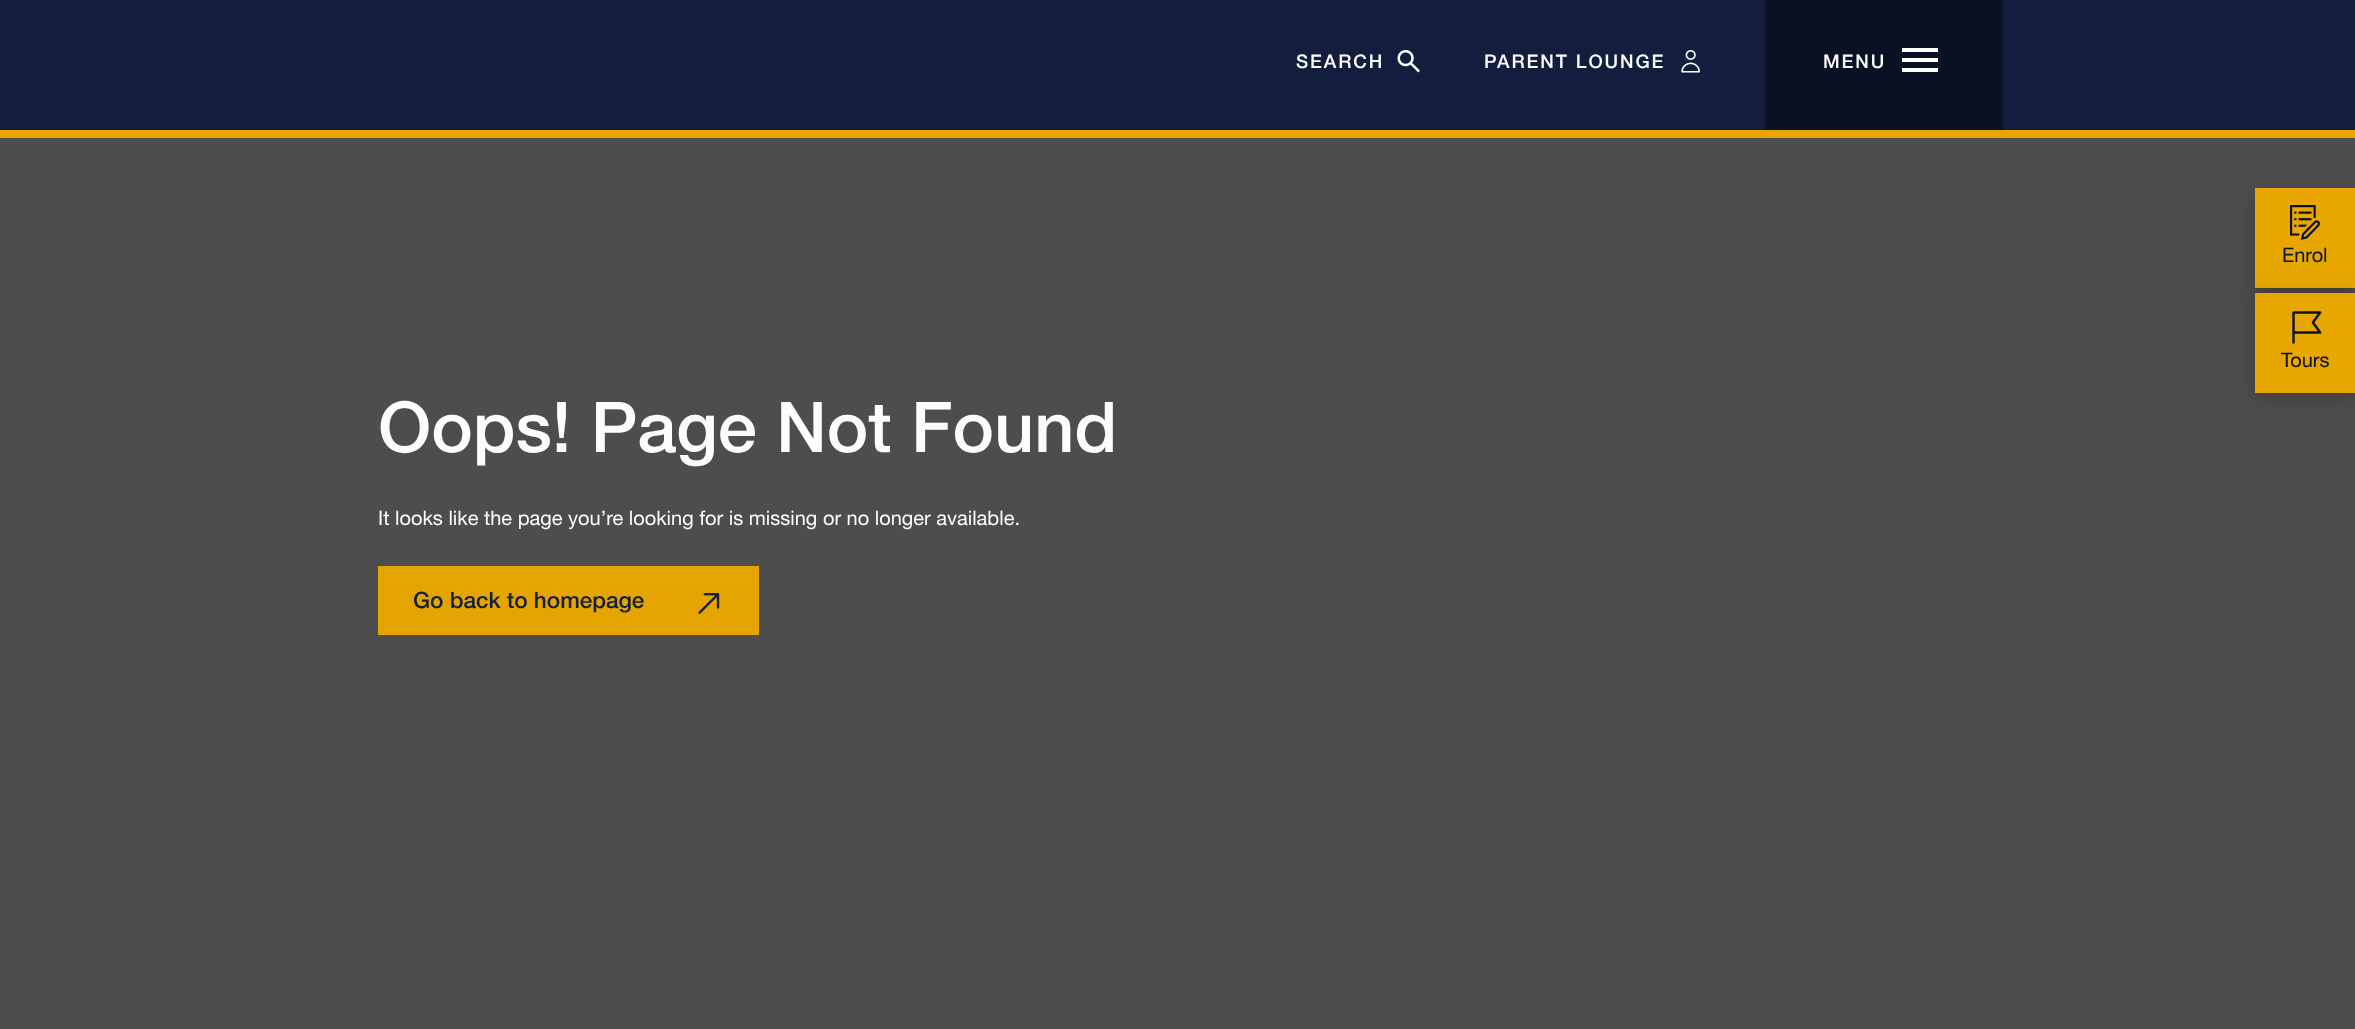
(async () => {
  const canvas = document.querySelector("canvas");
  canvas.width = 2355;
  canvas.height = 1029;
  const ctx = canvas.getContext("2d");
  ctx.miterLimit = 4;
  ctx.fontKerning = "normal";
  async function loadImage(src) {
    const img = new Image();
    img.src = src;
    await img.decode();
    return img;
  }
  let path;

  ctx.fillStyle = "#4d4d4d";
  ctx.fillRect(0, 0, 2355, 1029);
  ctx.fillStyle = "#131d3d";
  ctx.fillRect(0, 0, 2355, 130);
  ctx.fillStyle = "#e7a600";
  ctx.fillRect(0, 130, 2355, 8);
  ctx.drawImage(await loadImage("img/1.png"), 1397, 50, 23, 23);
  ctx.drawImage(await loadImage("img/2.png"), 1681, 50, 19, 23);
  ctx.fillStyle = "#0b1125";
  ctx.fillRect(1765, 0, 238, 130);
  ctx.fillStyle = "#ffffff";
  path = new Path2D("M1902 72V68H1938V72ZM1902 62V58H1938V62ZM1902 52V48H1938V52Z");
  ctx.fill(path);
  ctx.fillStyle = "rgba(0, 0, 0, 0.2)";
  ctx.filter = "blur(10px)";
  ctx.beginPath();
  ctx.rect(2255, 193, 100, 100);
  ctx.fill();
  ctx.filter = "none";
  ctx.fillStyle = "#e7a600";
  ctx.fillRect(2255, 188, 100, 100);
  ctx.drawImage(await loadImage("img/3.png"), 2290, 205, 30, 35);
  ctx.fillStyle = "rgba(0, 0, 0, 0.2)";
  ctx.filter = "blur(10px)";
  ctx.beginPath();
  ctx.rect(2255, 298, 100, 100);
  ctx.fill();
  ctx.filter = "none";
  ctx.fillStyle = "#e7a600";
  ctx.fillRect(2255, 293, 100, 100);
  ctx.drawImage(await loadImage("img/4.png"), 2292, 311, 30, 33);
  ctx.fillStyle = "#e4a401";
  ctx.fillRect(378, 566, 381, 69);
  ctx.drawImage(await loadImage("img/5.png"), 698, 593, 22, 21);
  ctx.letterSpacing = "1.9px";
  ctx.font = "500 18.75px Helvetica Neue";
  ctx.fillStyle = "#fcfcfc";
  for (const [text, x, y] of [
    ["SEARCH", 1296, 68],
    ["PARENT LOUNGE", 1484, 68],
    ["MENU", 1823, 68],
  ]) {
    ctx.fillText(text, x, y);
  }
  ctx.letterSpacing = "0px";
  ctx.font = "20px Helvetica Neue";
  ctx.fillStyle = "#0b1125";
  ctx.fillText("Enrol", 2282, 262);
  ctx.fillText("Tours", 2281, 367);
  ctx.font = "500 70px Helvetica Neue";
  ctx.fillStyle = "#fcfcfc";
  ctx.fillText("Oops! Page Not Found", 378, 452);
  ctx.font = "20px Helvetica Neue";
  ctx.fillText("It looks like the page you’re looking for is missing or no longer available.", 378, 525);
  ctx.font = "500 22.5px Helvetica Neue";
  ctx.fillStyle = "#141e3d";
  ctx.fillText("Go back to homepage", 413, 608);
})();
